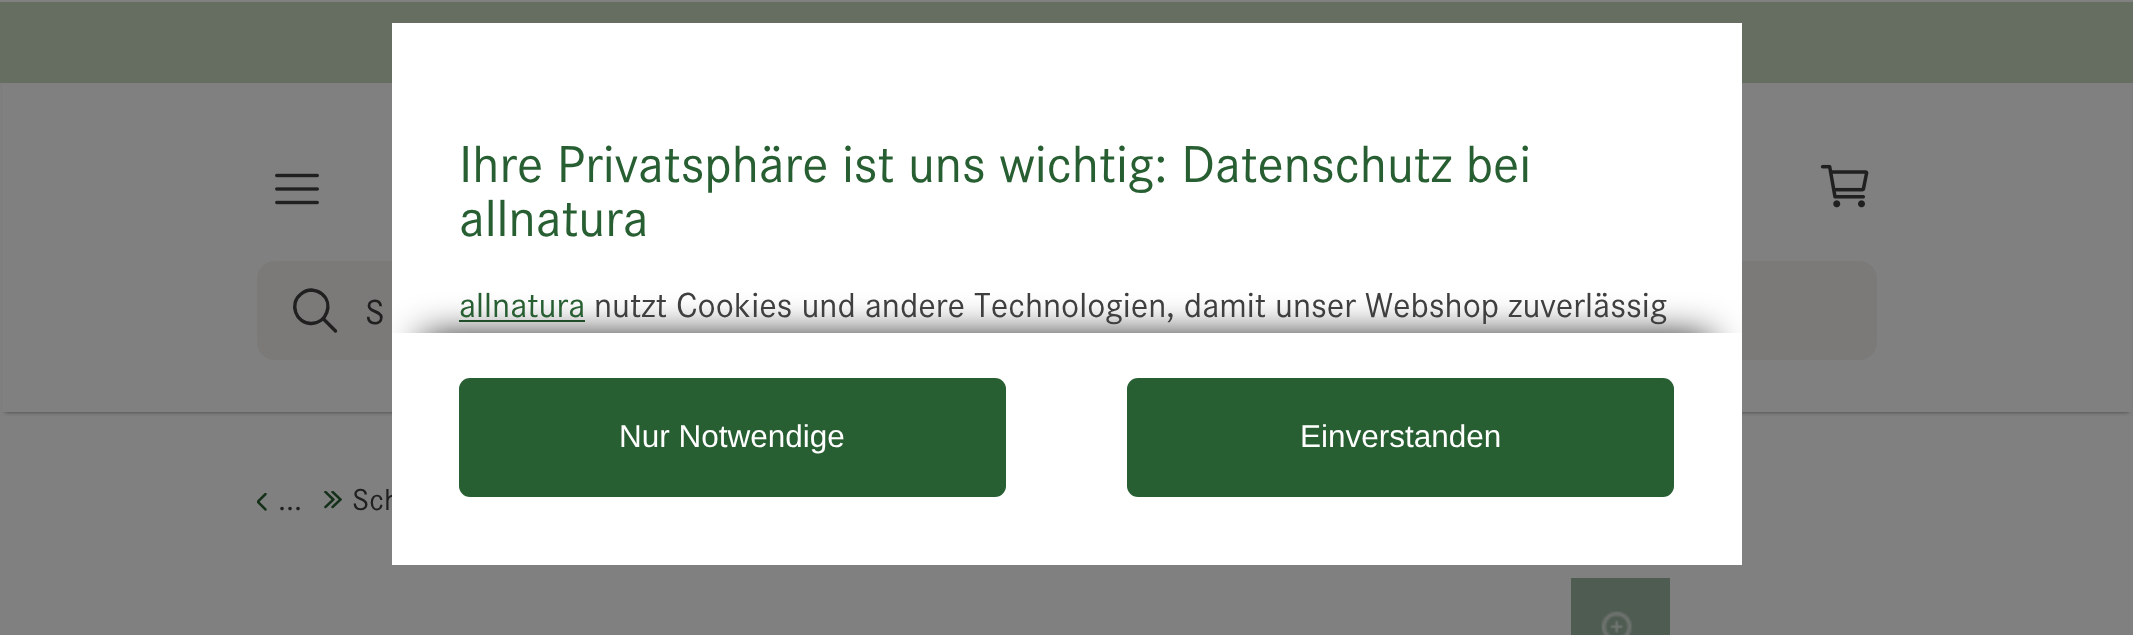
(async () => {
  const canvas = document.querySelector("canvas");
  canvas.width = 2133;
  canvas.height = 635;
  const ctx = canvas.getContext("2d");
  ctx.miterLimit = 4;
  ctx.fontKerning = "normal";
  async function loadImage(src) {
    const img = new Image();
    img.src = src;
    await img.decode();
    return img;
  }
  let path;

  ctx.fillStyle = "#808080";
  ctx.fillRect(0, 0, 2133, 635);
  ctx.fillStyle = "#404040";
  ctx.filter = "blur(2px)";
  ctx.beginPath();
  ctx.rect(5, 9, 2124, 403);
  ctx.fill();
  ctx.filter = "none";
  ctx.fillStyle = "#808080";
  ctx.fillRect(2, 6, 2130, 406);
  ctx.fillStyle = "#666d61";
  ctx.fillRect(0, 2, 2133, 81);
  ctx.drawImage(await loadImage("img/1.png"), 275, 173, 44, 32);
  ctx.drawImage(await loadImage("img/2.png"), 1820, 164, 49, 44);
  ctx.fillStyle = "#7c7a78";
  ctx.beginPath();
  ctx.roundRect(257, 261, 1620, 99, 18);
  ctx.fill();
  path = new Path2D("M311.5 290C307.5 290 304 291.5 301 294C288.5 303.5 296 324 311.5 323.5C327 323 333.5 303.5 322 294C319 291.5 315 290.5 311.5 290Z");
  ctx.strokeStyle = "#202020";
  ctx.lineWidth = 3.4;
  ctx.stroke(path);
  path = new Path2D("M323.5 319L335.5 331");
  ctx.lineCap = "round";
  ctx.stroke(path);
  ctx.drawImage(await loadImage("img/3.png"), 257, 493, 10, 18);
  ctx.drawImage(await loadImage("img/4.png"), 324, 491, 18, 18);
  ctx.fillStyle = "#4f5c52";
  ctx.fillRect(1571, 578, 99, 57);
  ctx.drawImage(await loadImage("img/5.png"), 1601, 611, 32, 24);
  ctx.fillStyle = "#ffffff";
  ctx.fillRect(392, 23, 1350, 310);
  ctx.fillStyle = "#285f32";
  ctx.fillRect(459, 320, 126, 2);
  ctx.save();
  ctx.beginPath();
  ctx.rect(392, 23, 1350, 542);
  ctx.clip();
  ctx.fillStyle = "#000000";
  ctx.filter = "blur(19px)";
  ctx.beginPath();
  ctx.rect(423, 338, 1287, 168);
  ctx.fill();
  ctx.filter = "none";
  ctx.restore();
  ctx.font = "36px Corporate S";
  ctx.fillStyle = "#202020";
  ctx.fillText("S", 365, 324);
  ctx.font = "31.5px Corporate S";
  ctx.fillText("...", 278, 510);
  ctx.fillText("Sch", 352, 510);
  ctx.font = "54px Corporate S";
  ctx.fillStyle = "#285f32";
  ctx.fillText("Ihre Privatsphäre ist uns wichtig: Datenschutz bei", 459, 182);
  ctx.fillText("allnatura", 459, 236);
  ctx.font = "36px Corporate S";
  ctx.fillText("allnatura", 459, 317);
  ctx.fillStyle = "#3f3f3f";
  ctx.fillText("nutzt Cookies und andere Technologien, damit unser Webshop zuverlässig", 594, 317);
  ctx.fillStyle = "#ffffff";
  ctx.fillRect(392, 333, 1350, 232);
  ctx.fillStyle = "#285f32";
  ctx.beginPath();
  ctx.roundRect(459, 378, 547, 119, 11);
  ctx.fill();
  ctx.font = "31.5px Liberation Sans";
  ctx.fillStyle = "#ffffff";
  ctx.fillText("Nur Notwendige", 619, 447);
  ctx.fillStyle = "#285f32";
  ctx.beginPath();
  ctx.roundRect(1127, 378, 547, 119, 11);
  ctx.fill();
  ctx.fillStyle = "#ffffff";
  ctx.fillText("Einverstanden", 1300, 447);
})();
